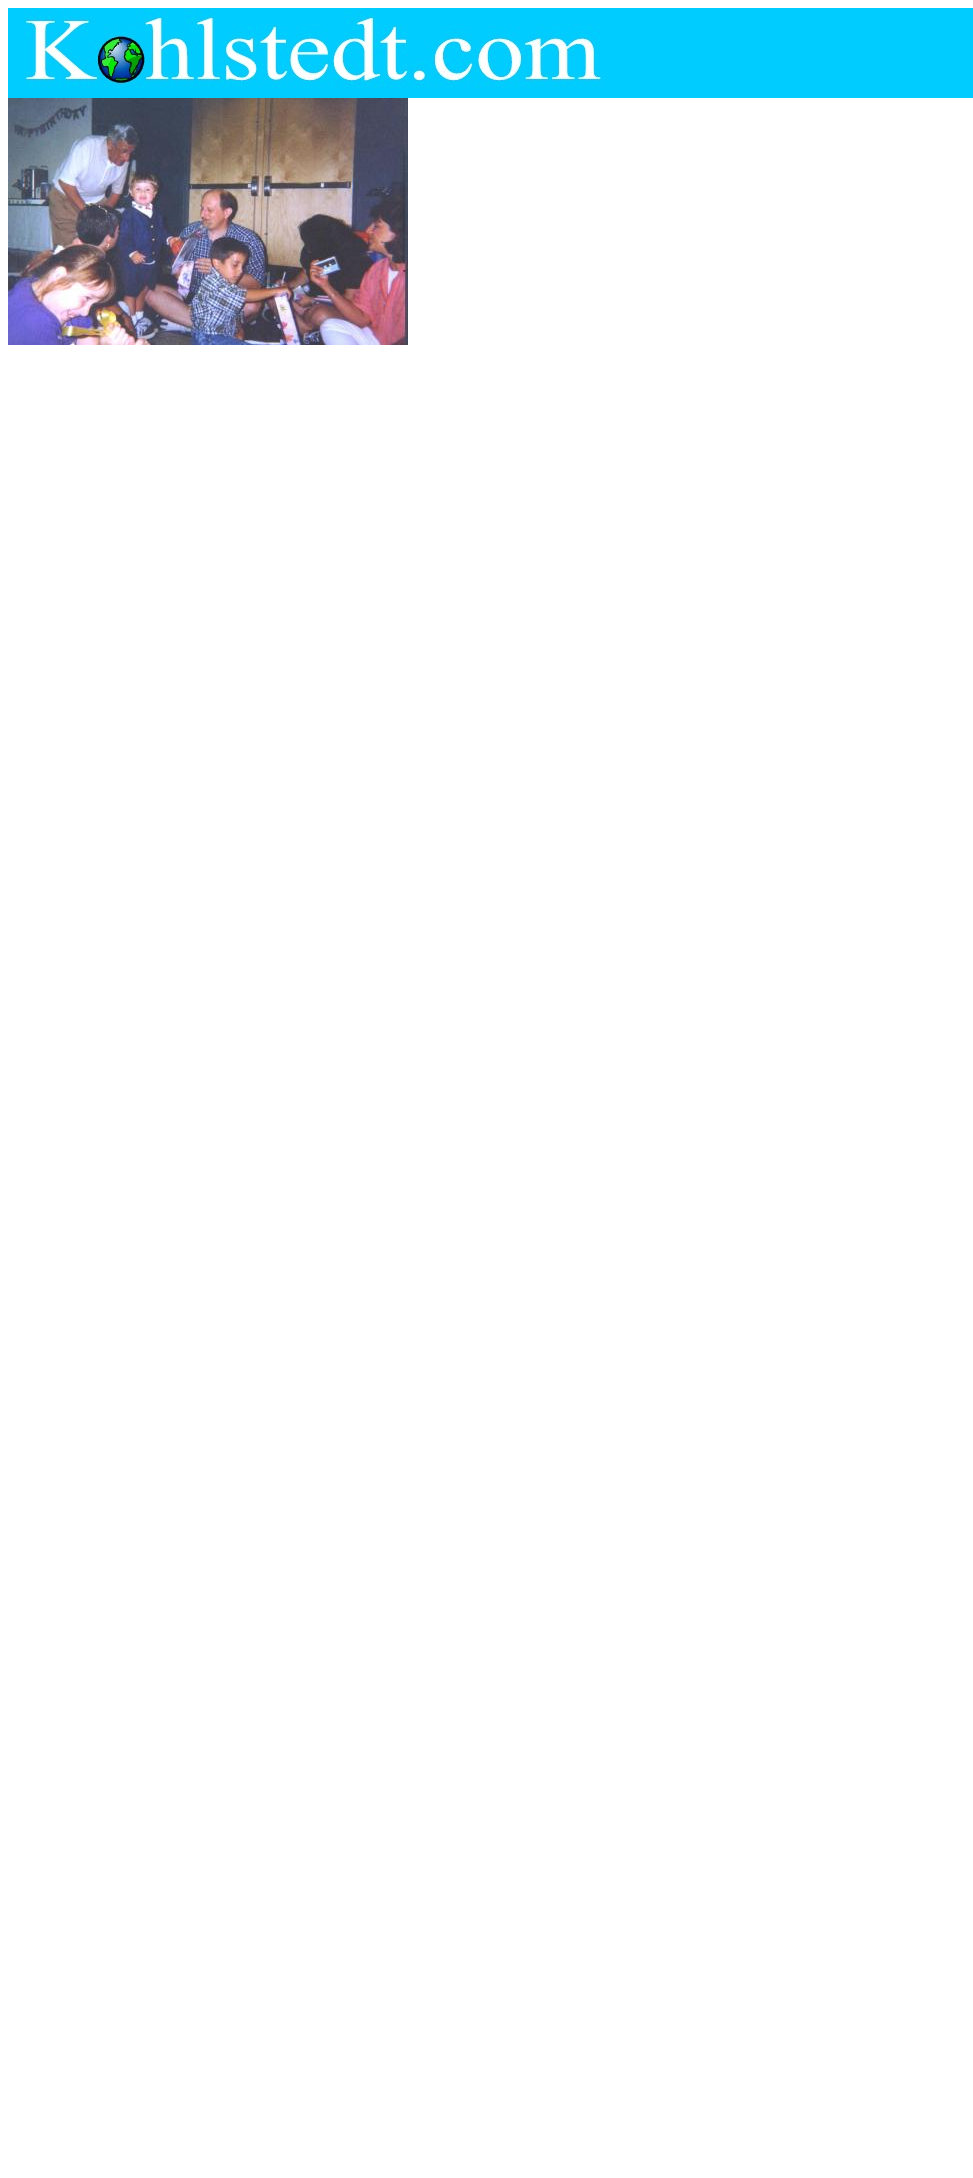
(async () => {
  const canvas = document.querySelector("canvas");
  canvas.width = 973;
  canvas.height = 2178;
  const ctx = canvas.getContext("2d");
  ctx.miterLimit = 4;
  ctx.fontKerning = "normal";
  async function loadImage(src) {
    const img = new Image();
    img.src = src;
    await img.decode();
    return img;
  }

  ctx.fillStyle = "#ffffff";
  ctx.fillRect(0, 0, 973, 2178);
  ctx.drawImage(await loadImage("img/1.png"), 8, 8, 965, 90);
  ctx.drawImage(await loadImage("img/2.png"), 8, 98, 400, 247);
})();
